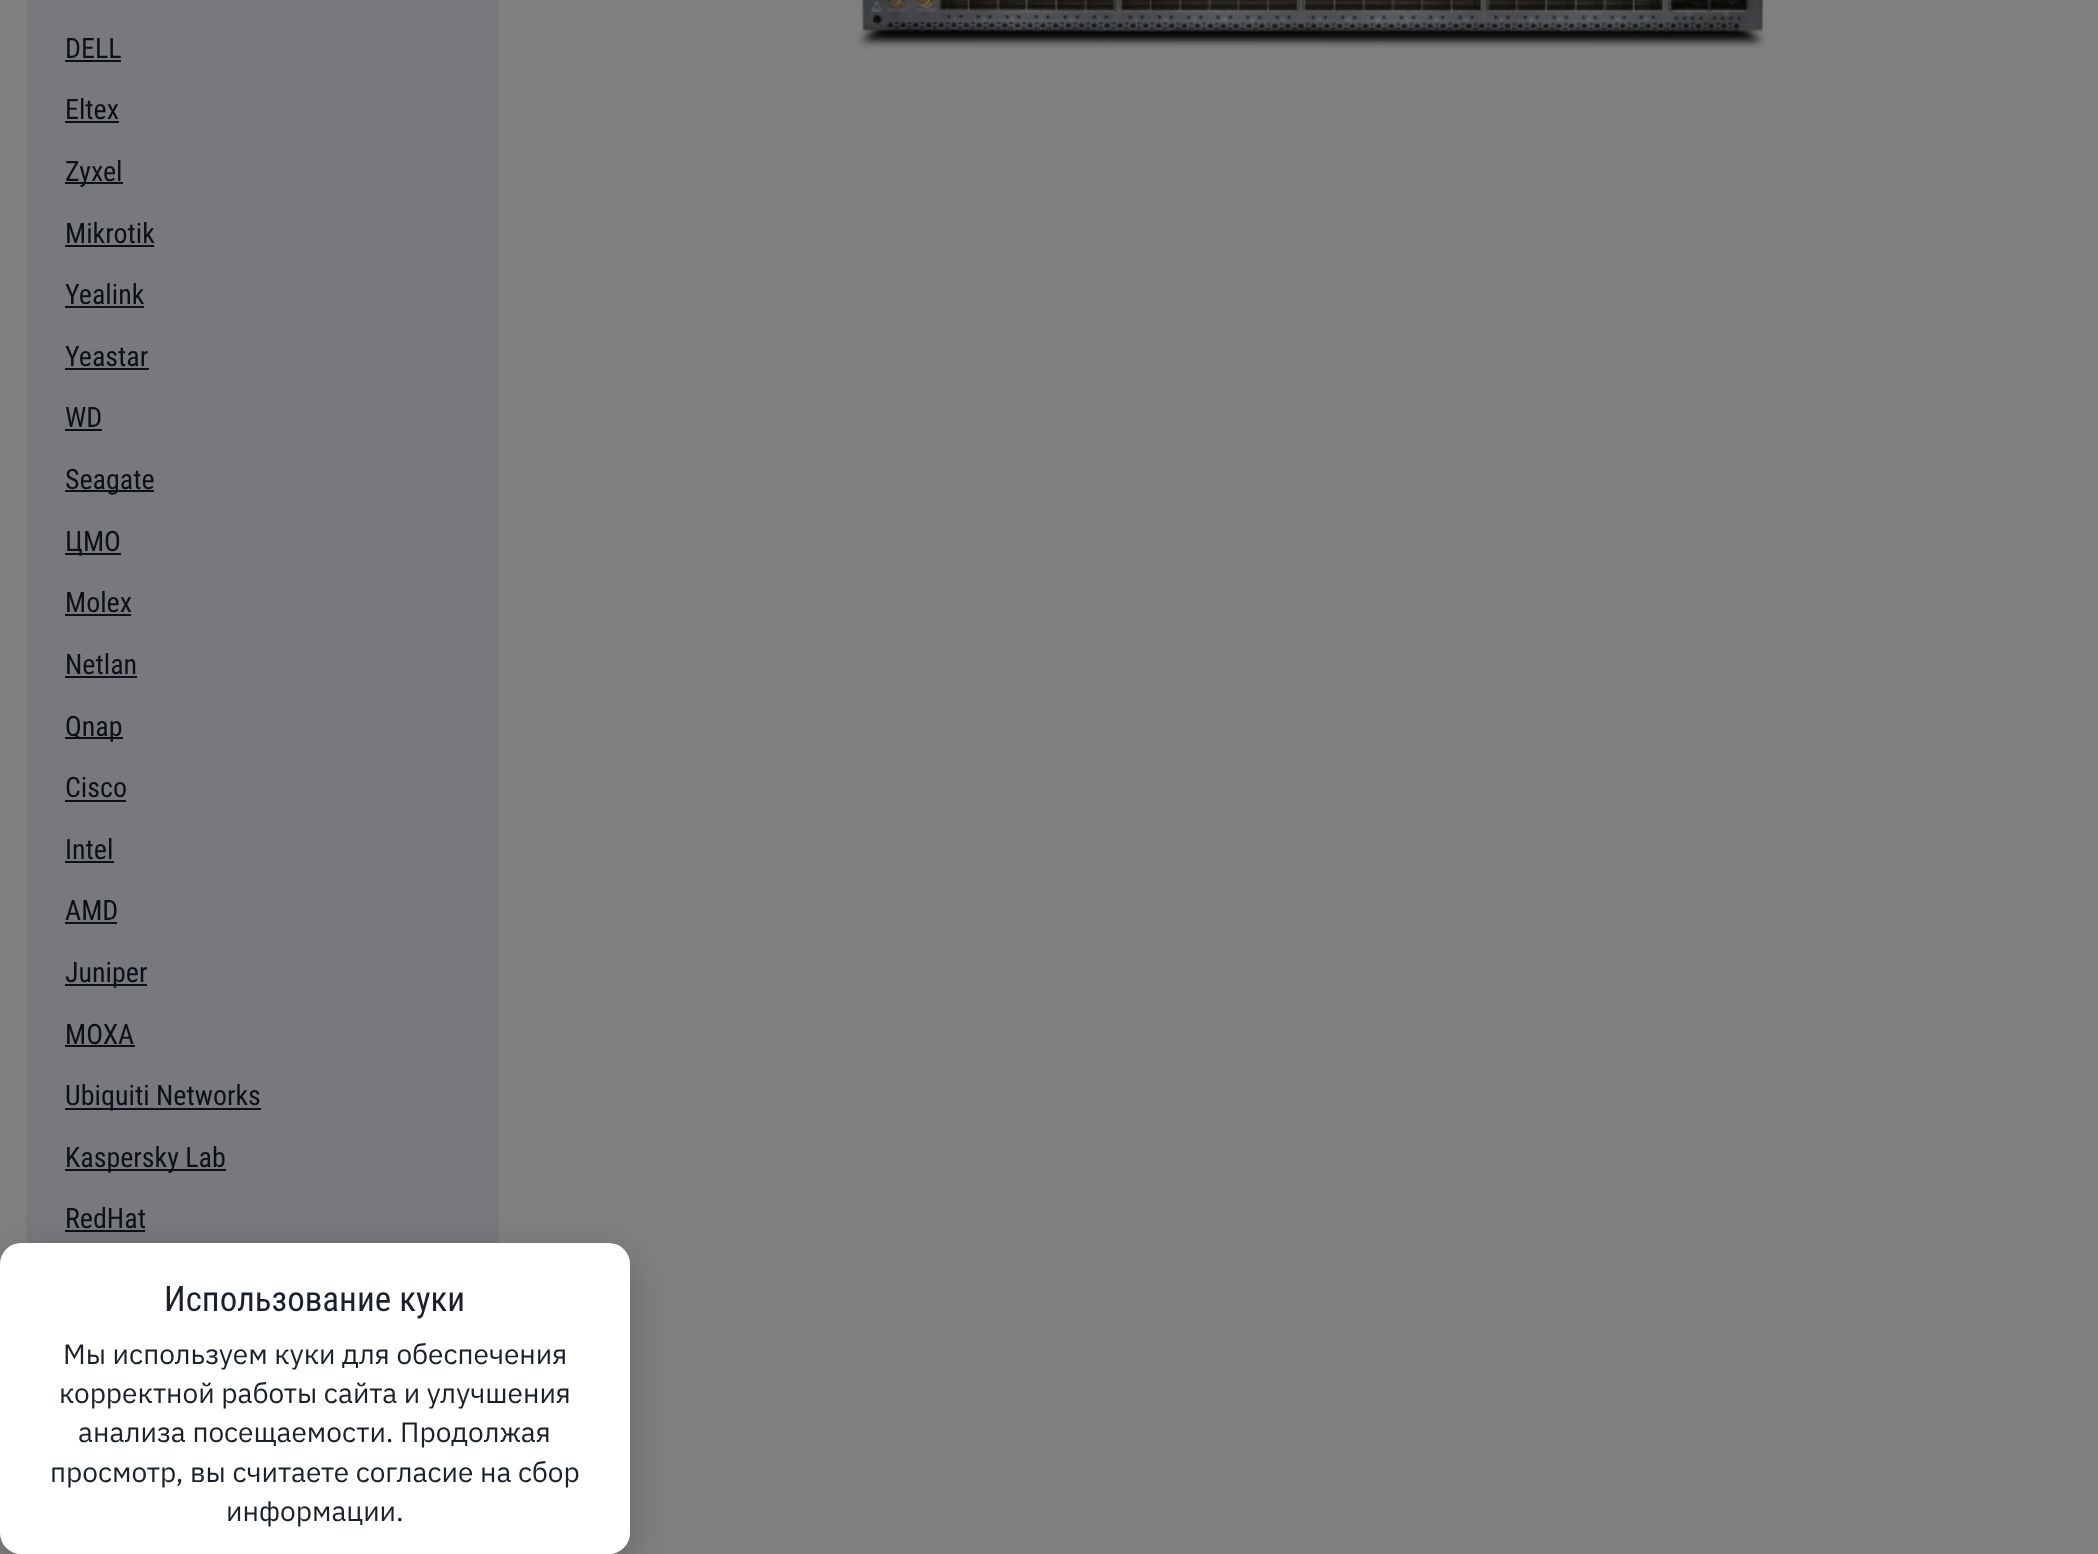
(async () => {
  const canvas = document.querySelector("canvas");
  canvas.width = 2098;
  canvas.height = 1554;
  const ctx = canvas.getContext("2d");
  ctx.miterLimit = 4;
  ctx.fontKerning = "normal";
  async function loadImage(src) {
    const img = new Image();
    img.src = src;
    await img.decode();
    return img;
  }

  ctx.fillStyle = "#808080";
  ctx.fillRect(0, 0, 2098, 1554);
  ctx.drawImage(await loadImage("img/1.png"), 857, 0, 910, 49);
  for (const [x, y, w, h, color] of [
    [26, 0, 473, 1243, "#77797c"],
    [65, 60, 56, 2, "#0d1016"],
    [65, 121, 54, 2, "#0d1016"],
    [65, 182, 58, 2, "#0d1016"],
    [65, 245, 89, 2, "#0d1016"],
    [65, 306, 79, 2, "#0d1016"],
    [65, 368, 84, 2, "#0d1016"],
    [65, 429, 37, 2, "#0d1016"],
    [65, 490, 89, 2, "#0d1016"],
    [65, 553, 56, 2, "#0d1016"],
    [65, 614, 66, 2, "#0d1016"],
    [65, 676, 72, 2, "#0d1016"],
    [65, 737, 58, 2, "#0d1016"],
    [65, 800, 61, 2, "#0d1016"],
    [65, 861, 49, 2, "#0d1016"],
    [65, 922, 52, 2, "#0d1016"],
    [65, 984, 82, 2, "#0d1016"],
    [65, 1045, 70, 2, "#0d1016"],
    [65, 1108, 196, 2, "#0d1016"],
    [65, 1169, 161, 2, "#0d1016"],
    [65, 1230, 80, 2, "#0d1016"],
  ]) {
    ctx.fillStyle = color;
    ctx.fillRect(x, y, w, h);
  }
  ctx.fillStyle = "rgba(0, 0, 0, 0.2)";
  ctx.filter = "blur(21px)";
  ctx.beginPath();
  ctx.roundRect(0, 1257, 630, 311, 21);
  ctx.fill();
  ctx.filter = "none";
  ctx.fillStyle = "#ffffff";
  ctx.beginPath();
  ctx.roundRect(0, 1243, 630, 311, 21);
  ctx.fill();
  ctx.font = "28px Roboto Condensed";
  ctx.fillStyle = "#0d1016";
  for (const [text, x, y] of [
    ["DELL", 65, 58],
    ["Eltex", 65, 119],
    ["Zyxel", 65, 181],
    ["Mikrotik", 65, 243],
    ["Yealink", 65, 304],
    ["Yeastar", 65, 366],
    ["WD", 65, 427],
    ["Seagate", 65, 489],
    ["ЦМО", 65, 551],
    ["Molex", 65, 612],
    ["Netlan", 65, 674],
    ["Qnap", 65, 736],
    ["Cisco", 65, 797],
    ["Intel", 65, 859],
    ["AMD", 65, 920],
    ["Juniper", 65, 982],
    ["MOXA", 65, 1044],
    ["Ubiquiti Networks", 65, 1105],
    ["Kaspersky Lab", 65, 1167],
    ["RedHat", 65, 1228],
  ]) {
    ctx.fillText(text, x, y);
  }
  ctx.font = "35px Roboto Condensed";
  ctx.fillStyle = "#1a202c";
  ctx.fillText("Использование куки", 164, 1311);
  ctx.font = "28px IBM Plex Sans";
  for (const [text, x, y] of [
    ["Мы используем куки для обеспечения", 63, 1364],
    ["корректной работы сайта и улучшения", 59, 1403],
    ["анализа посещаемости. Продолжая", 78, 1442],
    ["просмотр, вы считаете согласие на сбор", 50, 1482],
    ["информации.", 226, 1521],
  ]) {
    ctx.fillText(text, x, y);
  }
})();
